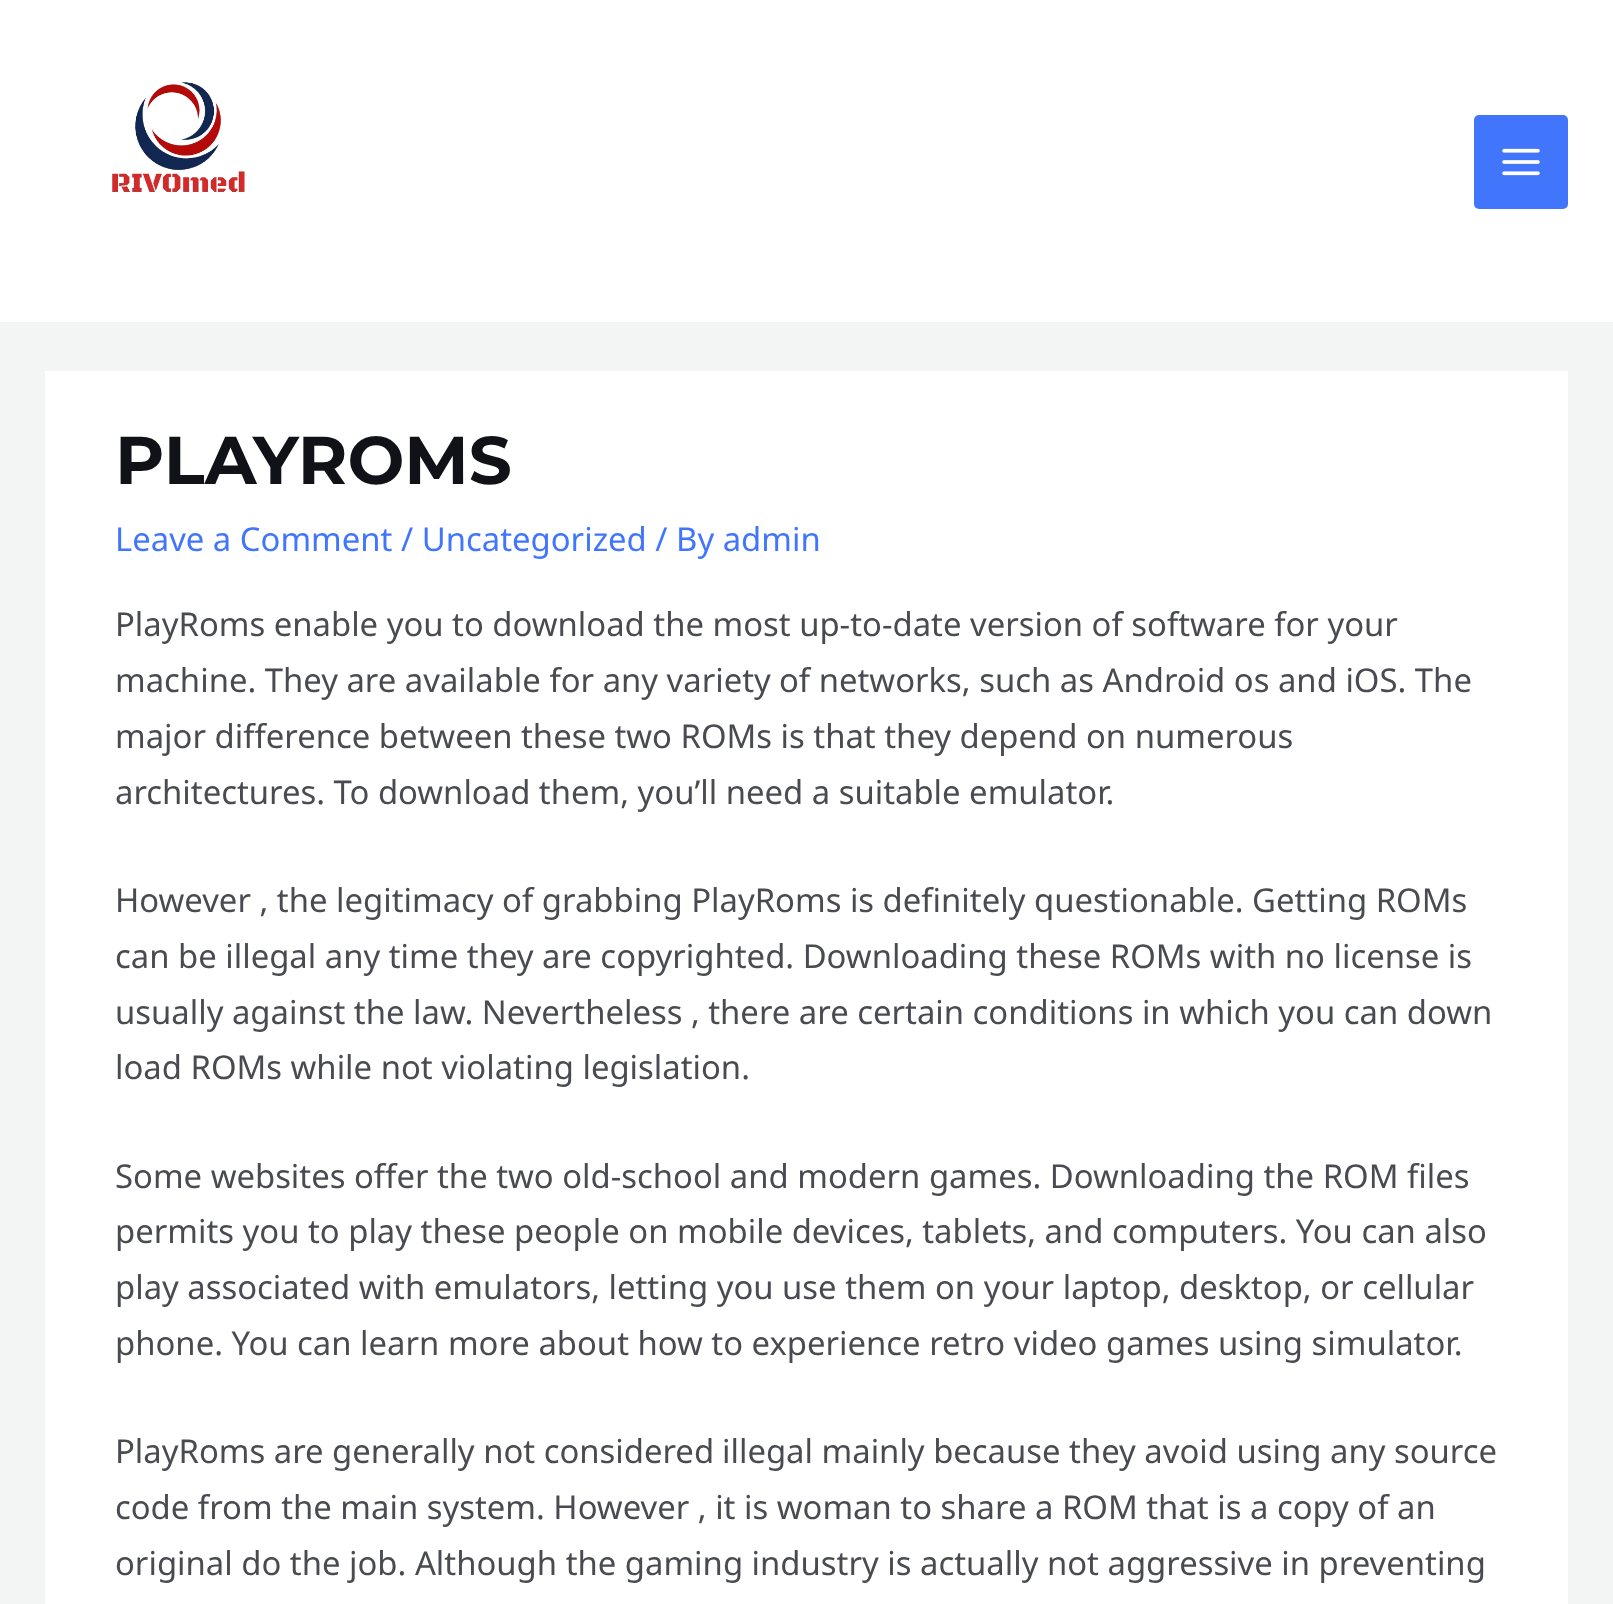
(async () => {
  const canvas = document.querySelector("canvas");
  canvas.width = 1613;
  canvas.height = 1604;
  const ctx = canvas.getContext("2d");
  ctx.miterLimit = 4;
  ctx.fontKerning = "normal";
  async function loadImage(src) {
    const img = new Image();
    img.src = src;
    await img.decode();
    return img;
  }

  ctx.fillStyle = "#f3f5f5";
  ctx.fillRect(0, 0, 1613, 1604);
  ctx.fillStyle = "#ffffff";
  ctx.fillRect(0, 0, 1613, 322);
  ctx.drawImage(await loadImage("img/1.png"), 112, 82, 133, 110);
  ctx.fillStyle = "#4175fc";
  ctx.beginPath();
  ctx.roundRect(1474, 115, 94, 94, 5);
  ctx.fill();
  ctx.drawImage(await loadImage("img/2.png"), 1502, 148, 38, 28);
  ctx.fillStyle = "#ffffff";
  ctx.fillRect(45, 371, 1523, 1233);
  ctx.font = "100 67.5px Montserrat";
  ctx.fillStyle = "#101218";
  ctx.fillText("PLAYROMS", 115, 484);
  ctx.font = "32.85px Noto Sans";
  ctx.fillStyle = "#4175fc";
  ctx.fillText("Leave a Comment / Uncategorized / By admin", 115, 551);
  ctx.fillStyle = "#494b51";
  for (const [text, x, y] of [
    ["PlayRoms enable you to download the most up-to-date version of software for your", 115, 636],
    ["machine. They are available for any variety", 115, 692],
    ["of networks, such as Android os and iOS. The", 779, 692],
    ["major difference between these two ROMs is that they depend on numerous", 115, 748],
    ["architectures. To download them, you’ll need a suitable emulator.", 115, 804],
    ["However , the legitimacy of grabbing PlayRoms is definitely questionable. Getting ROMs", 115, 912],
    ["can be illegal any time they", 115, 968],
    ["are copyrighted. Downloading these ROMs with no license is", 542, 968],
    ["usually against the law. Nevertheless , there are certain conditions in which you can down", 115, 1024],
    ["load ROMs while not violating legislation.", 115, 1079],
    ["Some websites offer the two old-school and modern games. Downloading the ROM files", 115, 1188],
    ["permits you to play these people on mobile devices, tablets, and computers. You can also", 115, 1243],
    ["play associated with emulators, letting you use them on your laptop, desktop, or cellular", 115, 1299],
    ["phone. You can learn more about how to experience retro video games using simulator.", 115, 1355],
    ["PlayRoms are generally not considered", 115, 1463],
    ["illegal mainly because they avoid using", 722, 1463],
    ["any source", 1330, 1463],
    ["code from the main system. However , it is woman to share a ROM that is a copy of an", 115, 1519],
    ["original do the job. Although the gaming industry is actually not aggressive in preventing", 115, 1575],
  ]) {
    ctx.fillText(text, x, y);
  }
})();
